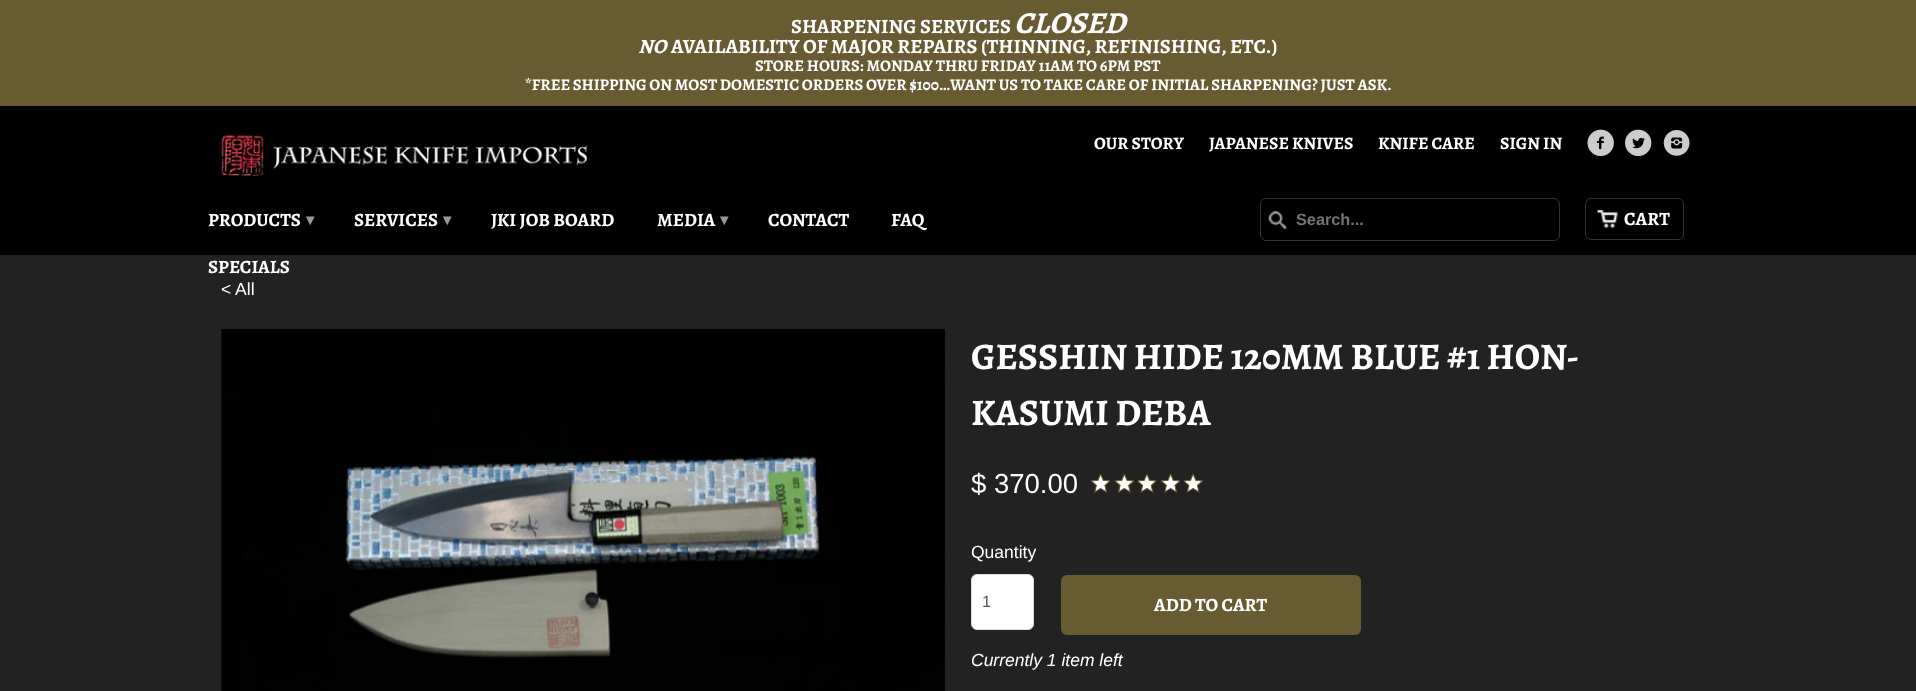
(async () => {
  const canvas = document.querySelector("canvas");
  canvas.width = 1916;
  canvas.height = 691;
  const ctx = canvas.getContext("2d");
  ctx.miterLimit = 4;
  ctx.fontKerning = "normal";
  async function loadImage(src) {
    const img = new Image();
    img.src = src;
    await img.decode();
    return img;
  }

  ctx.fillStyle = "#222222";
  ctx.fillRect(0, 0, 1916, 691);
  ctx.fillStyle = "#695b31";
  ctx.fillRect(0, 0, 1916, 106);
  ctx.fillStyle = "#000000";
  ctx.fillRect(0, 106, 1916, 149);
  ctx.drawImage(await loadImage("img/1.png"), 221, 134, 367, 45);
  ctx.drawImage(await loadImage("img/2.png"), 1587, 129, 27, 28);
  ctx.drawImage(await loadImage("img/3.png"), 1625, 129, 27, 28);
  ctx.drawImage(await loadImage("img/4.png"), 1663, 130, 27, 26);
  ctx.drawImage(await loadImage("img/5.png"), 1268, 211, 19, 18);
  ctx.beginPath();
  ctx.roundRect(1260.5, 198.5, 299, 42, 5.5);
  ctx.strokeStyle = "#333333";
  ctx.stroke();
  ctx.drawImage(await loadImage("img/6.png"), 1597, 209, 21, 19);
  ctx.beginPath();
  ctx.roundRect(1585.5, 198.5, 98, 41, 5.5);
  ctx.stroke();
  ctx.drawImage(await loadImage("img/7.png"), 221, 329, 724, 362);
  ctx.drawImage(await loadImage("img/8.png"), 1091, 474, 19, 19);
  ctx.drawImage(await loadImage("img/9.png"), 1115, 474, 19, 19);
  ctx.drawImage(await loadImage("img/10.png"), 1138, 474, 18, 19);
  ctx.drawImage(await loadImage("img/8.png"), 1161, 474, 19, 19);
  ctx.drawImage(await loadImage("img/11.png"), 1184, 474, 19, 19);
  ctx.fillStyle = "#ffffff";
  ctx.beginPath();
  ctx.roundRect(971.5, 574.5, 62, 55, 5.5);
  ctx.fill();
  ctx.strokeStyle = "#d7dcde";
  ctx.stroke();
  ctx.fillStyle = "#695b31";
  ctx.beginPath();
  ctx.roundRect(1061, 575, 300, 60, 6);
  ctx.fill();
  ctx.font = "bold 20.3px Alegreya";
  ctx.fillStyle = "#ffffff";
  ctx.fillText("SHARPENING SERVICES", 791, 33);
  ctx.font = "italic bold 30.5px Alegreya";
  ctx.fillText("CLOSED", 1014, 33);
  ctx.font = "italic bold 20.3px Alegreya";
  ctx.fillText("NO", 638, 53);
  ctx.font = "bold 20.3px Alegreya";
  ctx.fillText("AVAILABILITY OF MAJOR REPAIRS (THINNING, REFINISHING, ETC.)", 671, 53);
  ctx.font = "bold 16.25px Alegreya";
  ctx.fillText("STORE HOURS: MONDAY THRU FRIDAY 11AM TO 6PM PST", 755, 71);
  ctx.wordSpacing = "-0.25px";
  ctx.fillText("*FREE SHIPPING ON MOST DOMESTIC ORDERS OVER $100…", 525, 90);
  ctx.wordSpacing = "0px";
  ctx.fillText("WANT US TO TAKE CARE OF INITIAL SHARPENING? JUST ASK.", 950, 90);
  ctx.font = "bold 17.5px Alegreya";
  for (const [text, x, y] of [
    ["OUR STORY", 1094, 149],
    ["JAPANESE KNIVES", 1209, 149],
    ["KNIFE CARE", 1378, 149],
    ["SIGN IN", 1500, 149],
  ]) {
    ctx.fillText(text, x, y);
  }
  ctx.font = "bold 18.75px Alegreya";
  ctx.fillText("PRODUCTS", 208, 226);
  ctx.font = "bold 16px DejaVu Sans";
  ctx.fillStyle = "#999999";
  ctx.fillText("▾", 306, 225);
  ctx.font = "bold 18.75px Alegreya";
  ctx.fillStyle = "#ffffff";
  ctx.fillText("SERVICES", 354, 226);
  ctx.font = "bold 16px DejaVu Sans";
  ctx.fillStyle = "#999999";
  ctx.fillText("▾", 443, 225);
  ctx.font = "bold 18.75px Alegreya";
  ctx.fillStyle = "#ffffff";
  ctx.fillText("JKI JOB BOARD", 491, 226);
  ctx.fillText("MEDIA", 657, 226);
  ctx.font = "bold 16px DejaVu Sans";
  ctx.fillStyle = "#999999";
  ctx.fillText("▾", 720, 225);
  ctx.font = "bold 18.75px Alegreya";
  ctx.fillStyle = "#ffffff";
  for (const [text, x, y] of [
    ["CONTACT", 768, 226],
    ["FAQ", 891, 226],
    ["SPECIALS", 208, 273],
  ]) {
    ctx.fillText(text, x, y);
  }
  ctx.font = "bold 16.25px Liberation Sans";
  ctx.fillStyle = "#757575";
  ctx.fillText("Search...", 1296, 225);
  ctx.font = "bold 18.75px Alegreya";
  ctx.fillStyle = "#ffffff";
  ctx.fillText("CART", 1624, 225);
  ctx.font = "17.5px Liberation Sans";
  ctx.fillText("< All", 221, 295);
  ctx.font = "bold 37.5px Alegreya";
  ctx.fillText("GESSHIN HIDE 120MM BLUE #1 HON-", 971, 369);
  ctx.fillText("KASUMI DEBA", 971, 425);
  ctx.font = "27.5px Liberation Sans";
  ctx.fillText("$ 370.00", 971, 493);
  ctx.font = "17.5px Liberation Sans";
  ctx.fillText("Quantity", 971, 558);
  ctx.font = "16.25px Liberation Sans";
  ctx.fillStyle = "#51595d";
  ctx.fillText("1", 982, 607);
  ctx.font = "bold 18.75px Alegreya";
  ctx.fillStyle = "#ffffff";
  ctx.fillText("ADD TO CART", 1154, 611);
  ctx.font = "italic 17.5px Liberation Sans";
  ctx.fillText("Currently 1 item left", 971, 666);
})();
